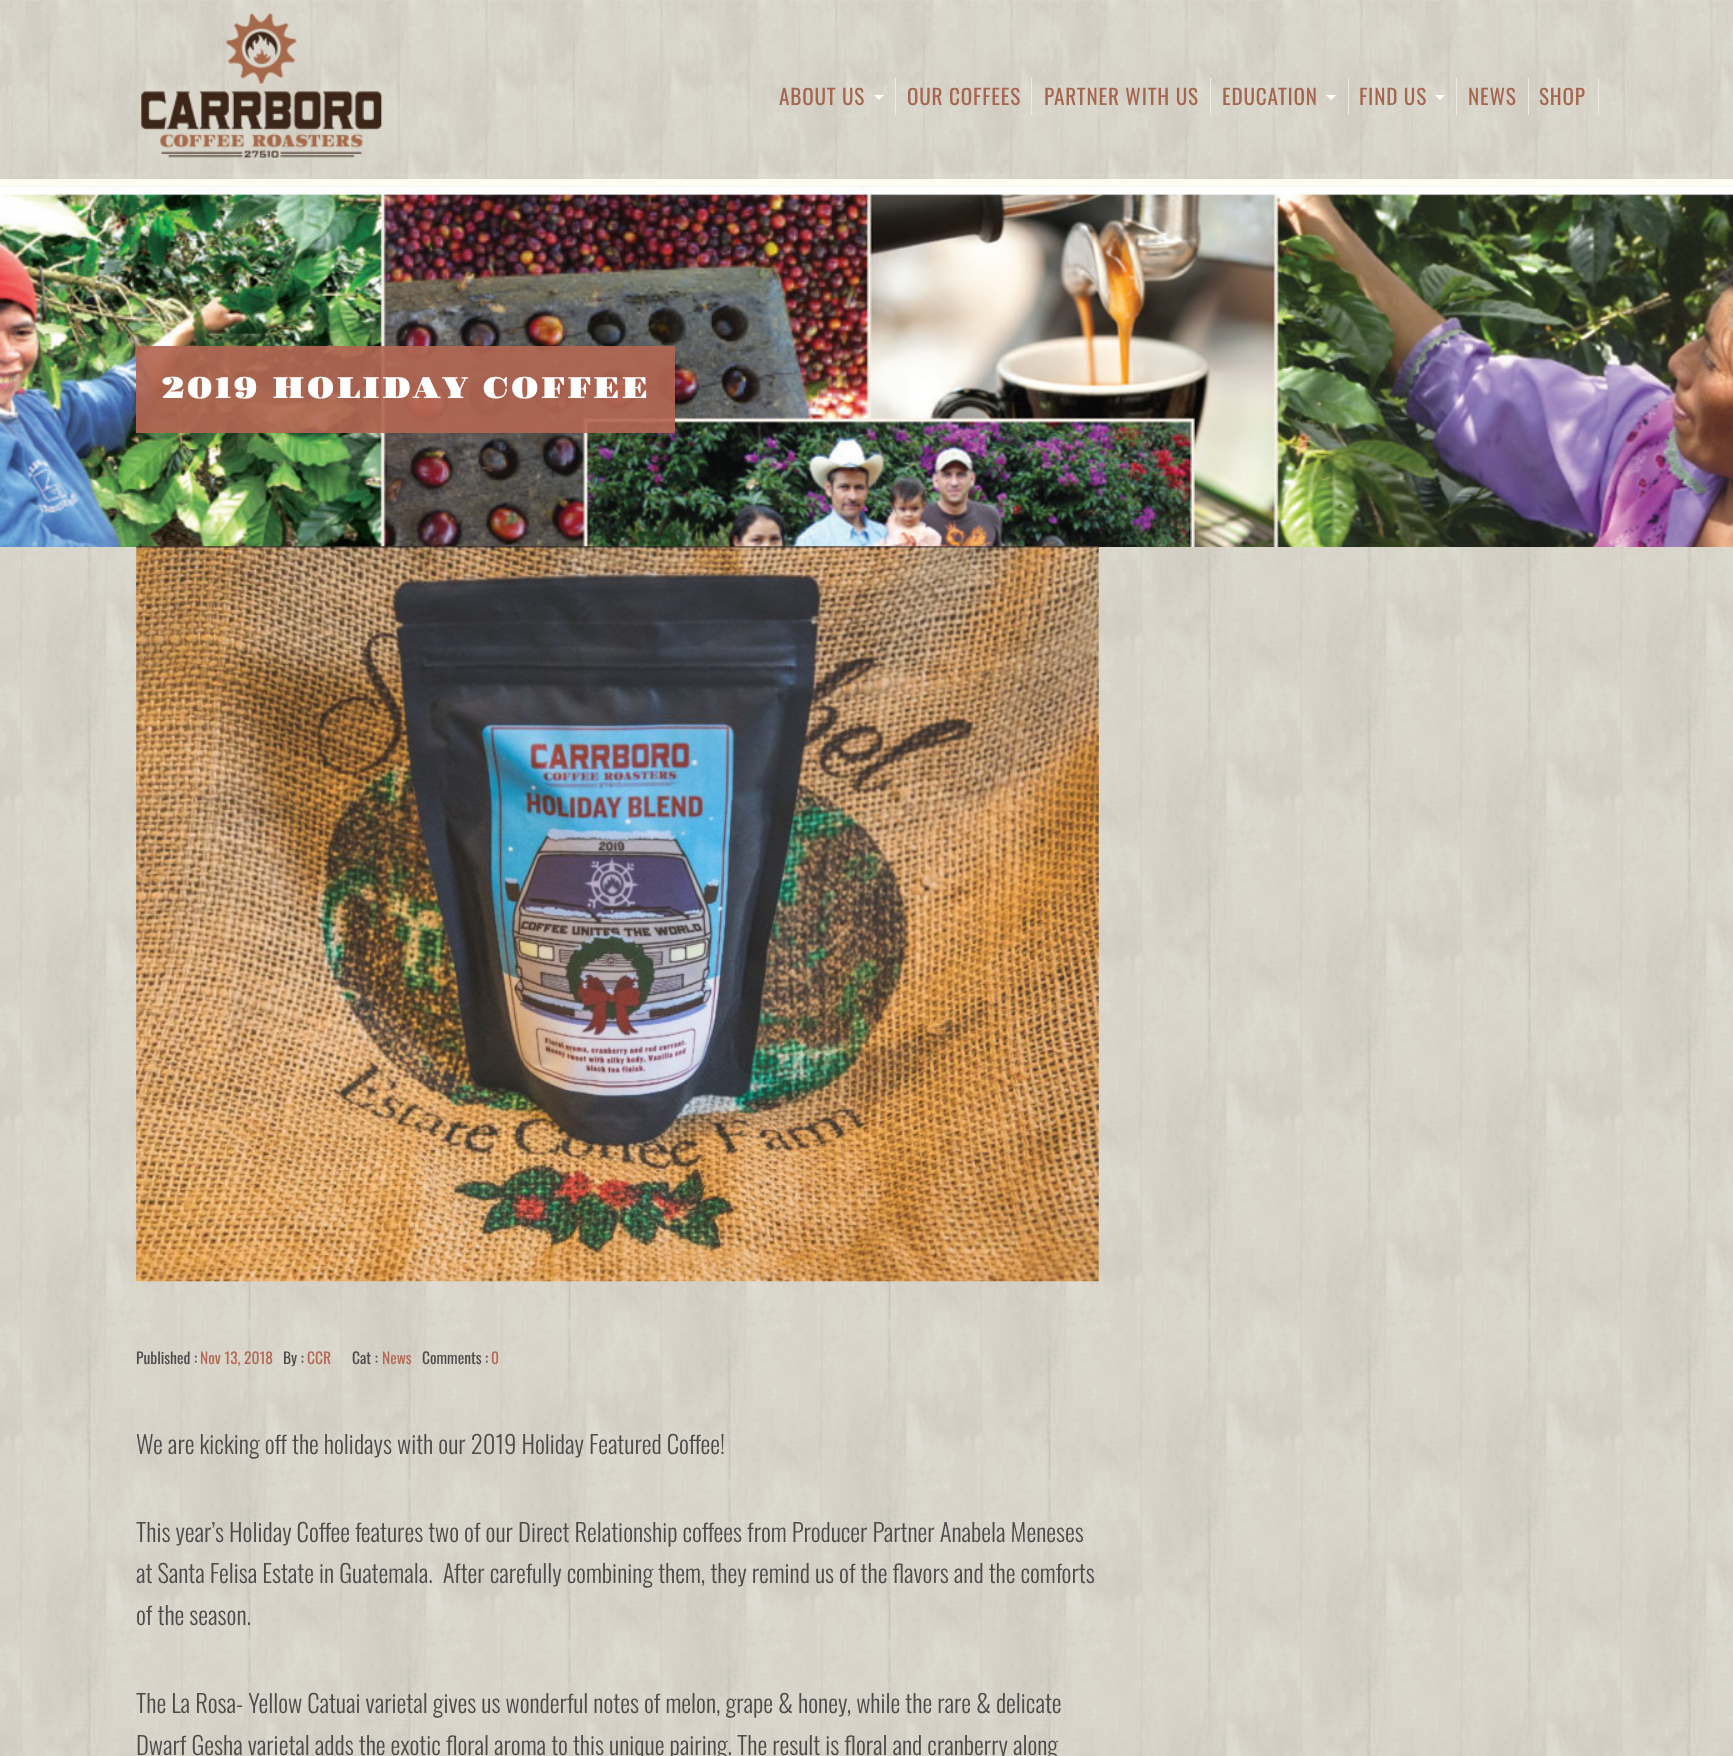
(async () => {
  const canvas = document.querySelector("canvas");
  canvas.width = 1733;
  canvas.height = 1756;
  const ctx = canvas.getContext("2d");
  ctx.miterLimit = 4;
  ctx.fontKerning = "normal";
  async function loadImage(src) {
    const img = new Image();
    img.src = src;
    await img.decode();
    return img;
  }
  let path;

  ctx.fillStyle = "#ffffff";
  ctx.fillRect(0, 0, 1733, 1756);
  ctx.drawImage(await loadImage("img/1.png"), 0, 547, 1733, 1209);
  ctx.drawImage(await loadImage("img/4.png"), 0, 186, 1733, 361);
  ctx.drawImage(await loadImage("img/2.png"), 0, 0, 1733, 187);
  ctx.fillStyle = "#fffef2";
  ctx.fillRect(0, 179, 1733, 7);
  ctx.drawImage(await loadImage("img/3.png"), 141, 13, 241, 145);
  ctx.fillStyle = "#eeece2";
  ctx.fillRect(895, 78, 1, 37);
  ctx.fillStyle = "#ffffff";
  path = new Path2D("M874 95H884L879 100Z");
  ctx.fill(path);
  for (const [x, y, w, h, color] of [
    [1031, 78, 1, 37, "#eeece2"],
    [1210, 78, 1, 37, "#eeece2"],
    [1348, 78, 1, 37, "#eeece2"],
  ]) {
    ctx.fillStyle = color;
    ctx.fillRect(x, y, w, h);
  }
  ctx.fillStyle = "#ffffff";
  path = new Path2D("M1326 95H1336L1331 100Z");
  ctx.fill(path);
  ctx.fillStyle = "#eeece2";
  ctx.fillRect(1456, 78, 1, 37);
  ctx.fillStyle = "#ffffff";
  path = new Path2D("M1435 95H1445L1440 100Z");
  ctx.fill(path);
  for (const [x, y, w, h, color] of [
    [1528, 78, 1, 37, "#eeece2"],
    [1598, 78, 1, 37, "#eeece2"],
    [136, 346, 539, 87, "rgba(178, 102, 83, 0.92)"],
  ]) {
    ctx.fillStyle = color;
    ctx.fillRect(x, y, w, h);
  }
  ctx.drawImage(await loadImage("img/5.png"), 136, 546, 963, 736);
  ctx.letterSpacing = "0.8px";
  ctx.font = "21.25px Oswald";
  ctx.fillStyle = "#a4664f";
  for (const [text, x, y] of [
    ["ABOUT US", 779, 105],
    ["OUR COFFEES", 907, 105],
    ["PARTNER WITH US", 1044, 105],
    ["EDUCATION", 1222, 105],
    ["FIND US", 1359, 105],
    ["NEWS", 1468, 105],
    ["SHOP", 1539, 105],
  ]) {
    ctx.fillText(text, x, y);
  }
  ctx.letterSpacing = "1.5px";
  ctx.font = "30px Gravitas One";
  ctx.fillStyle = "#ffffff";
  ctx.fillText("2019 HOLIDAY COFFEE", 161, 398);
  ctx.letterSpacing = "0px";
  ctx.font = "15.5px Oswald";
  ctx.fillStyle = "#4c4a4a";
  ctx.fillText("Published :", 136, 1364);
  ctx.fillStyle = "#b26653";
  ctx.fillText("Nov 13, 2018", 200, 1364);
  ctx.fillStyle = "#4c4a4a";
  ctx.fillText("By :", 283, 1364);
  ctx.fillStyle = "#b26653";
  ctx.fillText("CCR", 307, 1364);
  ctx.fillStyle = "#4c4a4a";
  ctx.fillText("Cat :", 352, 1364);
  ctx.fillStyle = "#b26653";
  ctx.fillText("News", 382, 1364);
  ctx.fillStyle = "#4c4a4a";
  ctx.fillText("Comments :", 422, 1364);
  ctx.fillStyle = "#b26653";
  ctx.fillText("0", 491, 1364);
  ctx.font = "300 24.7px Oswald";
  ctx.fillStyle = "#4c4a4a";
  for (const [text, x, y] of [
    ["We are kicking off the holidays with our 2019 Holiday Featured Coffee!", 136, 1454],
    ["This year’s Holiday Coffee features two of our Direct Relationship coffees from Producer Partner Anabela Meneses", 136, 1542],
    ["at Santa Felisa Estate in Guatemala.  After carefully combining them, they remind us of the flavors and the comforts", 136, 1583],
    ["of the season.", 136, 1625],
    ["The La Rosa- Yellow Catuai varietal gives us wonderful notes of melon, grape & honey, while the rare & delicate", 136, 1713],
    ["Dwarf Gesha varietal adds the exotic floral aroma to this unique pairing. The result is floral and cranberry along", 136, 1755],
  ]) {
    ctx.fillText(text, x, y);
  }
})();
